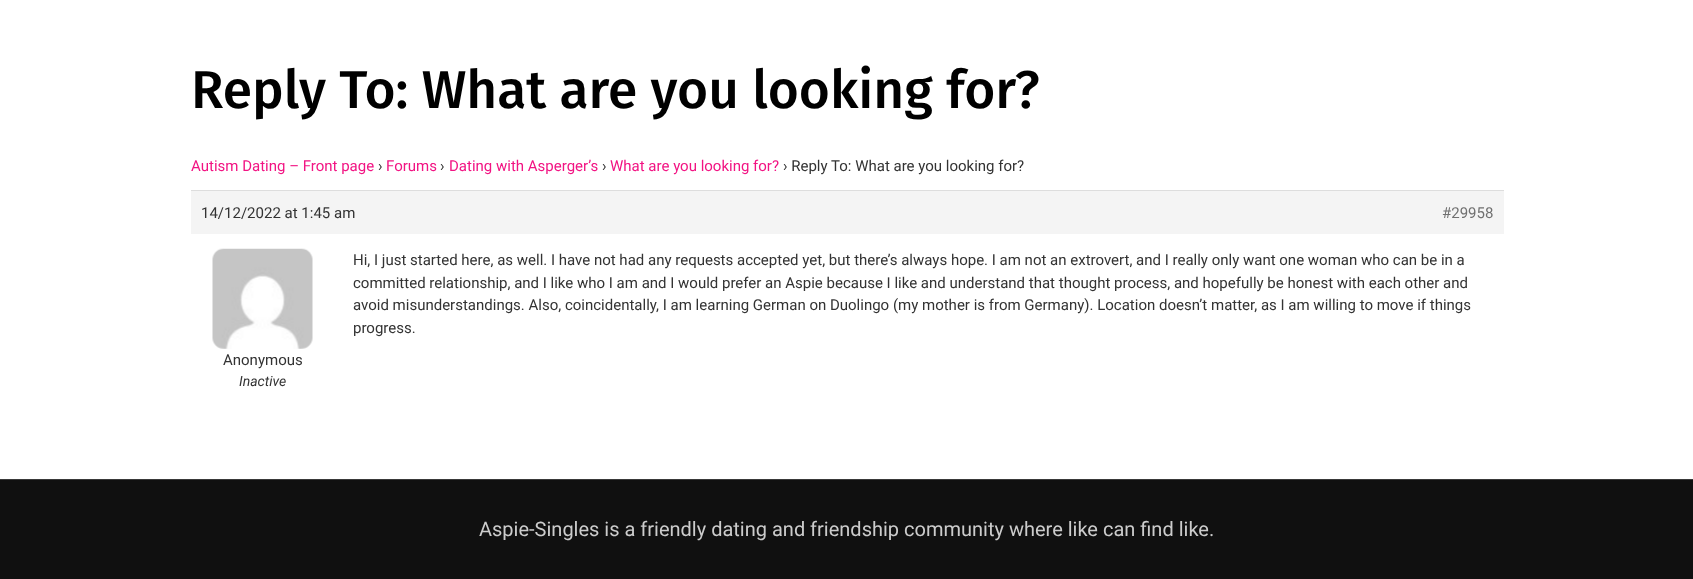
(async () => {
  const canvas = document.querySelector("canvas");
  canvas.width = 1693;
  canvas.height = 579;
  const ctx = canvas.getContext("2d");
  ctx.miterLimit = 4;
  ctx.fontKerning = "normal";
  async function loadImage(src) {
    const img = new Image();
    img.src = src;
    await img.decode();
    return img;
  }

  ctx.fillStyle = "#ffffff";
  ctx.fillRect(0, 0, 1693, 579);
  ctx.fillStyle = "#f4f4f4";
  ctx.fillRect(191, 191, 1313, 43);
  ctx.fillStyle = "#dddddd";
  ctx.fillRect(191, 190, 1313, 1);
  ctx.drawImage(await loadImage("img/1.png"), 212, 248, 101, 101);
  ctx.fillStyle = "#101010";
  ctx.fillRect(0, 480, 1693, 99);
  ctx.fillStyle = "#393939";
  ctx.fillRect(0, 479, 1693, 1);
  ctx.font = "500 53.25px Fira Sans";
  ctx.fillStyle = "#000000";
  ctx.fillText("Reply To: What are you looking for?", 191, 108);
  ctx.font = "15px Roboto";
  ctx.fillStyle = "#f21483";
  ctx.fillText("Autism Dating – Front page", 191, 171);
  ctx.fillStyle = "#333333";
  ctx.fillText("›", 378, 171);
  ctx.fillStyle = "#f21483";
  ctx.fillText("Forums", 386, 171);
  ctx.fillStyle = "#333333";
  ctx.fillText("›", 440, 171);
  ctx.fillStyle = "#f21483";
  ctx.fillText("Dating with Asperger’s", 449, 171);
  ctx.fillStyle = "#333333";
  ctx.fillText("›", 602, 171);
  ctx.fillStyle = "#f21483";
  ctx.fillText("What are you looking for?", 610, 171);
  ctx.fillStyle = "#333333";
  ctx.fillText("› Reply To: What are you looking for?", 783, 171);
  ctx.fillText("14/12/2022 at 1:45 am", 201, 218);
  ctx.fillStyle = "#707070";
  ctx.fillText("#29958", 1442, 218);
  ctx.fillStyle = "#333333";
  for (const [text, x, y] of [
    ["Hi, I just started here, as well. I have not had any requests accepted yet, but there’s always hope. I am not an extrovert, and I really only want one woman who can be in a", 353, 265],
    ["committed relationship, and I like who I am and I would prefer an Aspie because I like and understand that thought process, and hopefully be honest with each other and", 353, 288],
    ["avoid misunderstandings. Also, coincidentally, I am learning German on Duolingo (my mother is from Germany). Location doesn’t matter, as I am willing to move if things", 353, 310],
    ["progress.", 353, 333],
    ["Anonymous", 223, 365],
  ]) {
    ctx.fillText(text, x, y);
  }
  ctx.font = "italic 14px Roboto";
  ctx.fillText("Inactive", 239, 386);
  ctx.font = "20px Roboto";
  ctx.fillStyle = "#cccccc";
  ctx.fillText("Aspie-Singles is a friendly dating and friendship community where like can find like.", 479, 536);
})();
